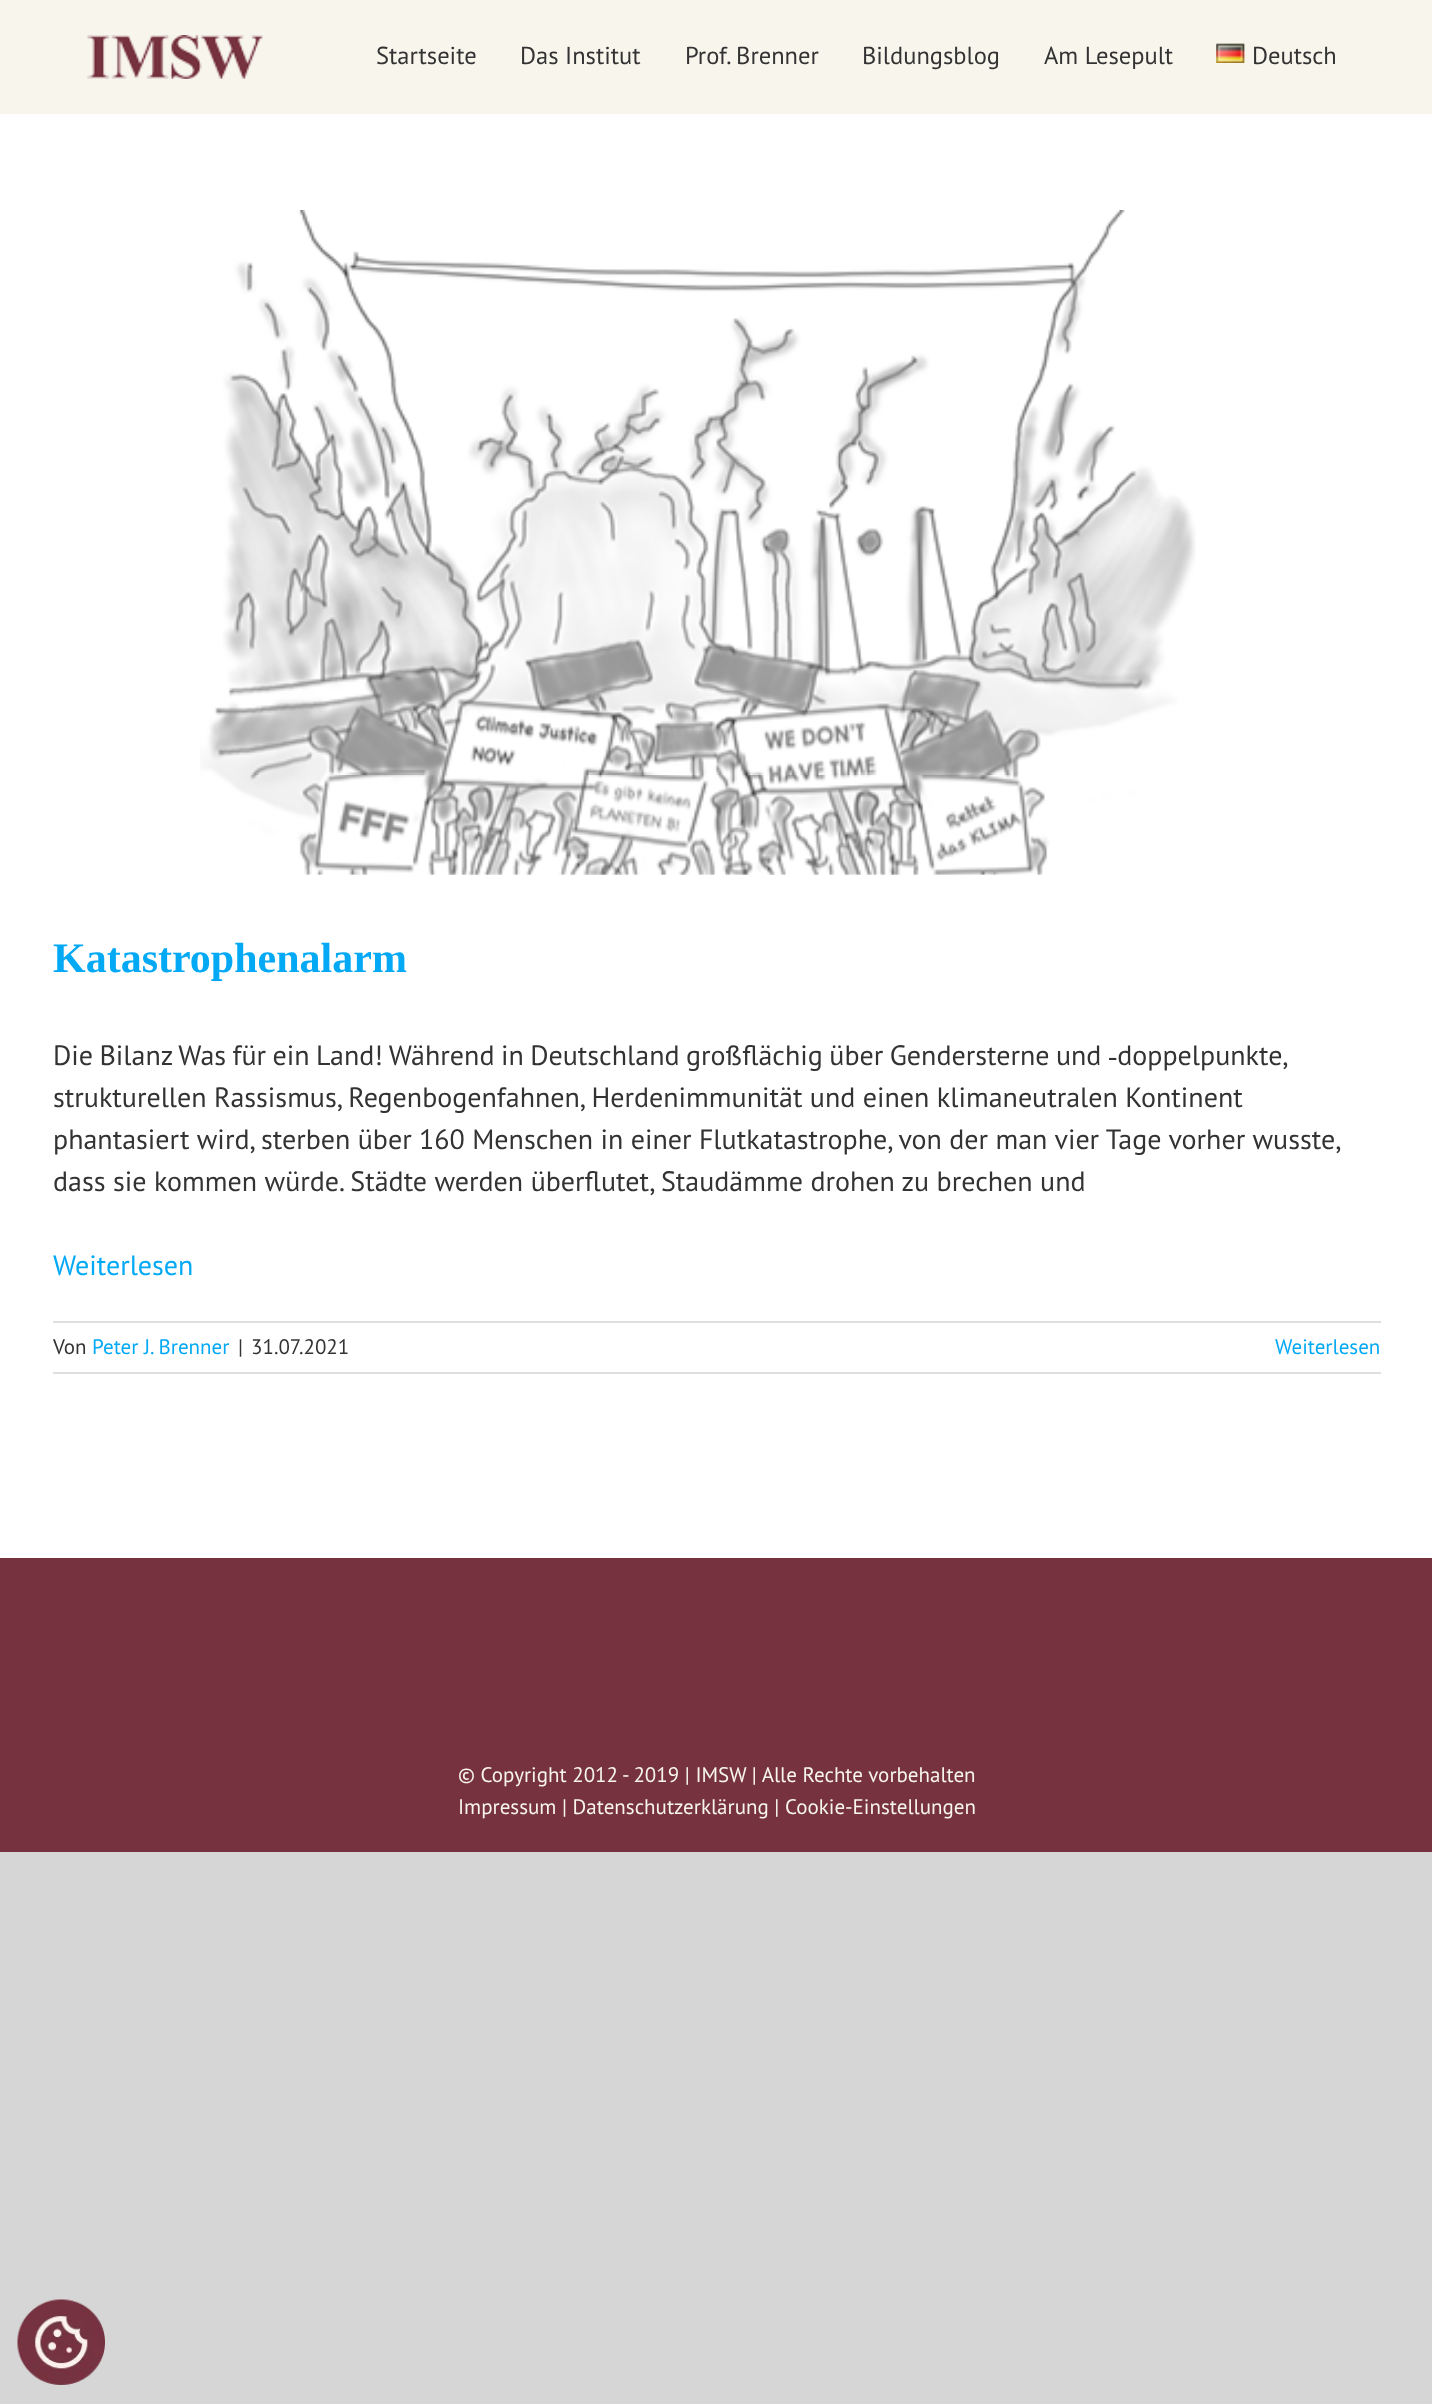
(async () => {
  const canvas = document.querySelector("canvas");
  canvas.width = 1432;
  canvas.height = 2404;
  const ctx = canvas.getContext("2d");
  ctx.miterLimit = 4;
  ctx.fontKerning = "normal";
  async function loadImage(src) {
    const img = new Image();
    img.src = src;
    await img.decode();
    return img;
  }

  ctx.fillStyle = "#d7d6d6";
  ctx.fillRect(0, 0, 1432, 2404);
  ctx.fillStyle = "#ffffff";
  ctx.fillRect(0, 114, 1432, 1444);
  ctx.fillStyle = "#f7f5ec";
  ctx.fillRect(0, 0, 1432, 114);
  ctx.drawImage(await loadImage("img/1.png"), 87, 35, 176, 44);
  ctx.drawImage(await loadImage("img/2.png"), 1216, 43, 29, 20);
  ctx.drawImage(await loadImage("img/3.png"), 200, 210, 996, 665);
  for (const [x, y, w, h, color] of [
    [53, 1321, 1328, 2, "#e0dede"],
    [53, 1372, 1328, 2, "#e0dede"],
    [0, 1558, 1432, 294, "#76323f"],
  ]) {
    ctx.fillStyle = color;
    ctx.fillRect(x, y, w, h);
  }
  ctx.drawImage(await loadImage("img/4.png"), 17, 2299, 88, 86);
  ctx.font = "24.5px PT Sans";
  ctx.fillStyle = "#333333";
  for (const [text, x, y] of [
    ["Startseite", 376, 64],
    ["Das Institut", 520, 64],
    ["Prof. Brenner", 685, 64],
    ["Bildungsblog", 862, 64],
    ["Am Lesepult", 1044, 64],
    ["Deutsch", 1252, 64],
  ]) {
    ctx.fillText(text, x, y);
  }
  ctx.font = "bold 42px Liberation Serif";
  ctx.fillStyle = "#03a9f4";
  ctx.fillText("Katastrophenalarm", 53, 972);
  ctx.wordSpacing = "-1px";
  ctx.font = "28px PT Sans";
  ctx.fillStyle = "#333333";
  ctx.fillText("Die Bilanz Was für ein Land! Während in Deutschland großflächig über Gendersterne und ‑doppelpunkte,", 53, 1065);
  ctx.wordSpacing = "0px";
  ctx.fillText("strukturellen Rassismus, Regenbogenfahnen, Herdenimmunität und einen klimaneutralen Kontinent", 53, 1107);
  ctx.wordSpacing = "-0.1px";
  ctx.fillText("phantasiert wird, sterben über 160 Menschen in einer Flutkatastrophe, von der man vier Tage vorher wusste,", 53, 1149);
  ctx.wordSpacing = "0px";
  ctx.fillText("dass sie kommen würde. Städte werden überflutet, Staudämme drohen zu brechen und", 53, 1191);
  ctx.fillStyle = "#03a9f4";
  ctx.fillText("Weiterlesen", 53, 1275);
  ctx.font = "21px PT Sans";
  ctx.fillStyle = "#333333";
  ctx.fillText("Von", 53, 1354);
  ctx.fillStyle = "#03a9f4";
  ctx.fillText("Peter J. Brenner", 92, 1354);
  ctx.fillStyle = "#333333";
  ctx.fillText("|", 238, 1354);
  ctx.fillText("31.07.2021", 251, 1354);
  ctx.fillStyle = "#03a9f4";
  ctx.fillText("Weiterlesen", 1275, 1354);
  ctx.fillStyle = "#f7f5ec";
  ctx.fillText("© Copyright 2012 - 2019 | IMSW | Alle Rechte vorbehalten", 458, 1782);
  ctx.fillText("Impressum | Datenschutzerklärung | Cookie-Einstellungen", 458, 1814);
})();
